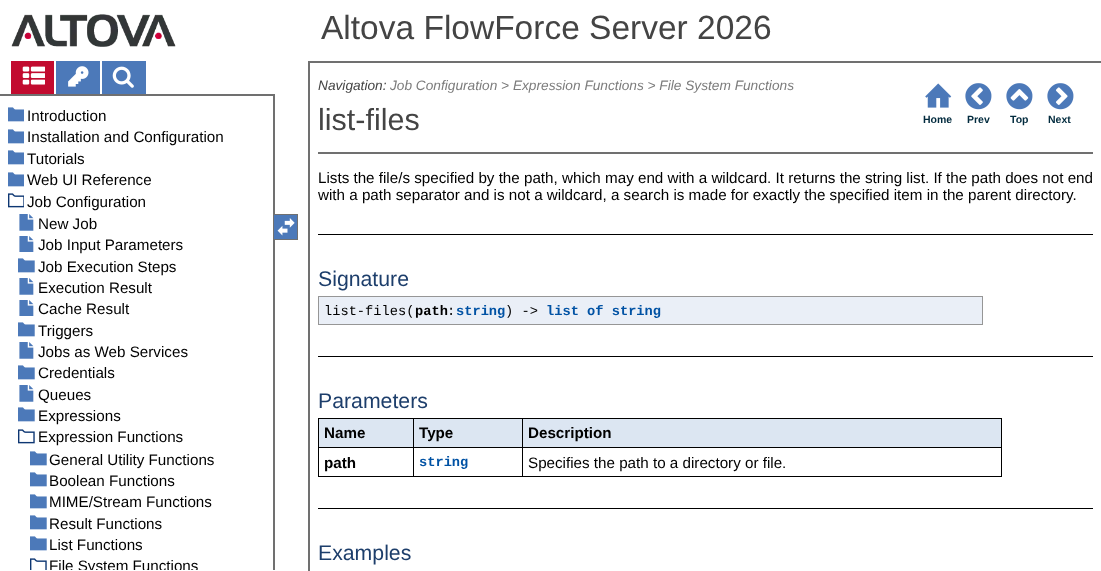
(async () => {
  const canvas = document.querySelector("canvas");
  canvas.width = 1101;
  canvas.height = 571;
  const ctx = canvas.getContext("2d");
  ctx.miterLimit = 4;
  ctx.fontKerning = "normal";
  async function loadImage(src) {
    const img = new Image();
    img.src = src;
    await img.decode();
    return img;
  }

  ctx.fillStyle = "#ffffff";
  ctx.fillRect(0, 0, 1101, 571);
  ctx.drawImage(await loadImage("img/1.png"), 11, 14, 165, 33);
  for (const [x, y, w, h, color] of [
    [11, 61, 43, 33, "#c20b2f"],
    [56, 61, 44, 33, "#4c79b9"],
    [102, 61, 44, 33, "#4c79b9"],
  ]) {
    ctx.fillStyle = color;
    ctx.fillRect(x, y, w, h);
  }
  ctx.drawImage(await loadImage("img/2.png"), 22, 66, 23, 19);
  ctx.drawImage(await loadImage("img/3.png"), 68, 66, 21, 21);
  ctx.drawImage(await loadImage("img/4.png"), 112, 66, 22, 22);
  ctx.fillStyle = "#707070";
  ctx.fillRect(0, 94, 275, 2);
  ctx.fillRect(273, 94, 2, 476);
  ctx.drawImage(await loadImage("img/5.png"), 8, 107, 16, 15);
  ctx.drawImage(await loadImage("img/5.png"), 8, 129, 16, 15);
  ctx.drawImage(await loadImage("img/5.png"), 8, 150, 16, 15);
  ctx.drawImage(await loadImage("img/5.png"), 8, 172, 16, 15);
  ctx.drawImage(await loadImage("img/6.png"), 8, 193, 16, 15);
  ctx.drawImage(await loadImage("img/7.png"), 19, 214, 15, 17);
  ctx.drawImage(await loadImage("img/8.png"), 19, 236, 15, 16);
  ctx.drawImage(await loadImage("img/9.png"), 18, 258, 17, 15);
  ctx.drawImage(await loadImage("img/7.png"), 19, 278, 15, 17);
  ctx.drawImage(await loadImage("img/8.png"), 19, 300, 15, 16);
  ctx.drawImage(await loadImage("img/9.png"), 18, 322, 17, 15);
  ctx.drawImage(await loadImage("img/7.png"), 19, 342, 15, 17);
  ctx.drawImage(await loadImage("img/9.png"), 18, 365, 17, 15);
  ctx.drawImage(await loadImage("img/7.png"), 19, 385, 15, 17);
  ctx.drawImage(await loadImage("img/9.png"), 18, 407, 17, 15);
  ctx.drawImage(await loadImage("img/10.png"), 18, 429, 17, 15);
  ctx.drawImage(await loadImage("img/9.png"), 30, 451, 17, 15);
  ctx.drawImage(await loadImage("img/9.png"), 30, 472, 17, 15);
  ctx.drawImage(await loadImage("img/9.png"), 30, 494, 17, 15);
  ctx.drawImage(await loadImage("img/9.png"), 30, 515, 17, 15);
  ctx.drawImage(await loadImage("img/9.png"), 30, 536, 17, 15);
  ctx.drawImage(await loadImage("img/11.png"), 30, 558, 17, 12);
  for (const [x, y, w, h, color] of [
    [274, 215, 23, 24, "#4c79b9"],
    [274, 214, 24, 1, "#707070"],
    [297, 214, 1, 26, "#707070"],
    [274, 239, 24, 1, "#707070"],
  ]) {
    ctx.fillStyle = color;
    ctx.fillRect(x, y, w, h);
  }
  ctx.drawImage(await loadImage("img/12.png"), 277, 218, 18, 18);
  ctx.fillRect(308, 61, 793, 2);
  ctx.fillRect(308, 61, 2, 510);
  ctx.drawImage(await loadImage("img/13.png"), 925, 83, 27, 25);
  ctx.drawImage(await loadImage("img/14.png"), 965, 83, 27, 27);
  ctx.drawImage(await loadImage("img/15.png"), 1006, 83, 27, 27);
  ctx.drawImage(await loadImage("img/16.png"), 1047, 83, 27, 27);
  for (const [x, y, w, h, color] of [
    [318, 152, 775, 2, "#707070"],
    [318, 234, 775, 1, "#000000"],
    [319, 297, 663, 27, "#eaeff7"],
    [318, 296, 665, 1, "#969696"],
    [982, 296, 1, 29, "#969696"],
    [318, 324, 665, 1, "#969696"],
    [318, 296, 1, 29, "#969696"],
    [318, 356, 775, 1, "#000000"],
    [319, 419, 94, 28, "#dce6f2"],
    [522, 418, 480, 1, "#000000"],
    [522, 447, 480, 1, "#000000"],
    [1001, 447, 1, 30, "#000000"],
    [522, 476, 480, 1, "#000000"],
    [522, 447, 1, 30, "#000000"],
    [413, 447, 110, 1, "#000000"],
    [522, 418, 1, 30, "#000000"],
    [413, 418, 110, 1, "#000000"],
    [413, 476, 110, 1, "#000000"],
    [413, 447, 1, 30, "#000000"],
    [318, 447, 96, 1, "#000000"],
    [413, 418, 1, 30, "#000000"],
    [318, 418, 96, 1, "#000000"],
    [318, 476, 96, 1, "#000000"],
    [318, 447, 1, 30, "#000000"],
    [318, 418, 1, 30, "#000000"],
    [414, 419, 108, 28, "#dce6f2"],
    [523, 419, 478, 28, "#dce6f2"],
    [1001, 418, 1, 30, "#000000"],
    [318, 508, 775, 1, "#000000"],
  ]) {
    ctx.fillStyle = color;
    ctx.fillRect(x, y, w, h);
  }
  ctx.font = "33.5px Liberation Sans";
  ctx.fillStyle = "#444444";
  ctx.fillText("Altova FlowForce Server 2026", 321, 39);
  ctx.font = "15.2px Liberation Sans";
  ctx.fillStyle = "#000000";
  for (const [text, x, y] of [
    ["Introduction", 27, 121],
    ["Installation and Configuration", 27, 142],
    ["Tutorials", 27, 164],
    ["Web UI Reference", 27, 185],
    ["Job Configuration", 27, 207],
    ["New Job", 38, 229],
    ["Job Input Parameters", 38, 250],
    ["Job Execution Steps", 38, 272],
    ["Execution Result", 38, 293],
    ["Cache Result", 38, 314],
    ["Triggers", 38, 336],
    ["Jobs as Web Services", 38, 357],
    ["Credentials", 38, 378],
    ["Queues", 38, 400],
    ["Expressions", 38, 421],
    ["Expression Functions", 38, 442],
    ["General Utility Functions", 49, 465],
    ["Boolean Functions", 49, 486],
    ["MIME/Stream Functions", 49, 507],
    ["Result Functions", 49, 529],
    ["List Functions", 49, 550],
  ]) {
    ctx.fillText(text, x, y);
  }
  ctx.save();
  ctx.beginPath();
  ctx.rect(0, 447, 273, 123);
  ctx.clip();
  ctx.fillText("File System Functions", 49, 571);
  ctx.restore();
  ctx.font = "italic 13.7px Liberation Sans";
  ctx.fillStyle = "#444444";
  ctx.fillText("Navigation:", 318, 90);
  ctx.fillStyle = "#7c7c7c";
  ctx.fillText("Job Configuration > Expression Functions > File System Functions", 390, 90);
  ctx.font = "30.5px Liberation Sans";
  ctx.fillStyle = "#444444";
  ctx.fillText("list-files", 318, 130);
  ctx.font = "bold 10.5px Liberation Sans";
  ctx.fillStyle = "#022b3e";
  for (const [text, x, y] of [
    ["Home", 923, 123],
    ["Prev", 967, 123],
    ["Top", 1010, 123],
    ["Next", 1048, 123],
  ]) {
    ctx.fillText(text, x, y);
  }
  ctx.font = "15.2px Liberation Sans";
  ctx.fillStyle = "#000000";
  ctx.fillText("Lists the file/s specified by the path, which may end with a wildcard. It returns the string list. If the path does not end", 318, 183);
  ctx.fillText("with a path separator and is not a wildcard, a search is made for exactly the specified item in the parent directory.", 318, 200);
  ctx.font = "21.25px Liberation Sans";
  ctx.fillStyle = "#1d3e6b";
  ctx.fillText("Signature", 318, 286);
  ctx.font = "13.7px Liberation Mono";
  ctx.fillStyle = "#000000";
  ctx.fillText("list-files(", 324, 315);
  ctx.font = "bold 13.7px Liberation Mono";
  ctx.fillText("path", 415, 315);
  ctx.font = "13.7px Liberation Mono";
  ctx.fillText(":", 447, 315);
  ctx.font = "bold 13.7px Liberation Mono";
  ctx.fillStyle = "#0052a4";
  ctx.fillText("string", 456, 315);
  ctx.font = "13.7px Liberation Mono";
  ctx.fillStyle = "#000000";
  ctx.fillText(") ->", 505, 315);
  ctx.font = "bold 13.7px Liberation Mono";
  ctx.fillStyle = "#0052a4";
  ctx.fillText("list of string", 546, 315);
  ctx.font = "21.25px Liberation Sans";
  ctx.fillStyle = "#1d3e6b";
  ctx.fillText("Parameters", 318, 408);
  ctx.font = "bold 15.2px Liberation Sans";
  ctx.fillStyle = "#000000";
  for (const [text, x, y] of [
    ["Name", 324, 438],
    ["Type", 419, 438],
    ["Description", 528, 438],
    ["path", 324, 468],
  ]) {
    ctx.fillText(text, x, y);
  }
  ctx.font = "bold 13.7px Liberation Mono";
  ctx.fillStyle = "#0052a4";
  ctx.fillText("string", 419, 466);
  ctx.font = "15.2px Liberation Sans";
  ctx.fillStyle = "#000000";
  ctx.fillText("Specifies the path to a directory or file.", 528, 468);
  ctx.font = "21.25px Liberation Sans";
  ctx.fillStyle = "#1d3e6b";
  ctx.fillText("Examples", 318, 560);
})();
